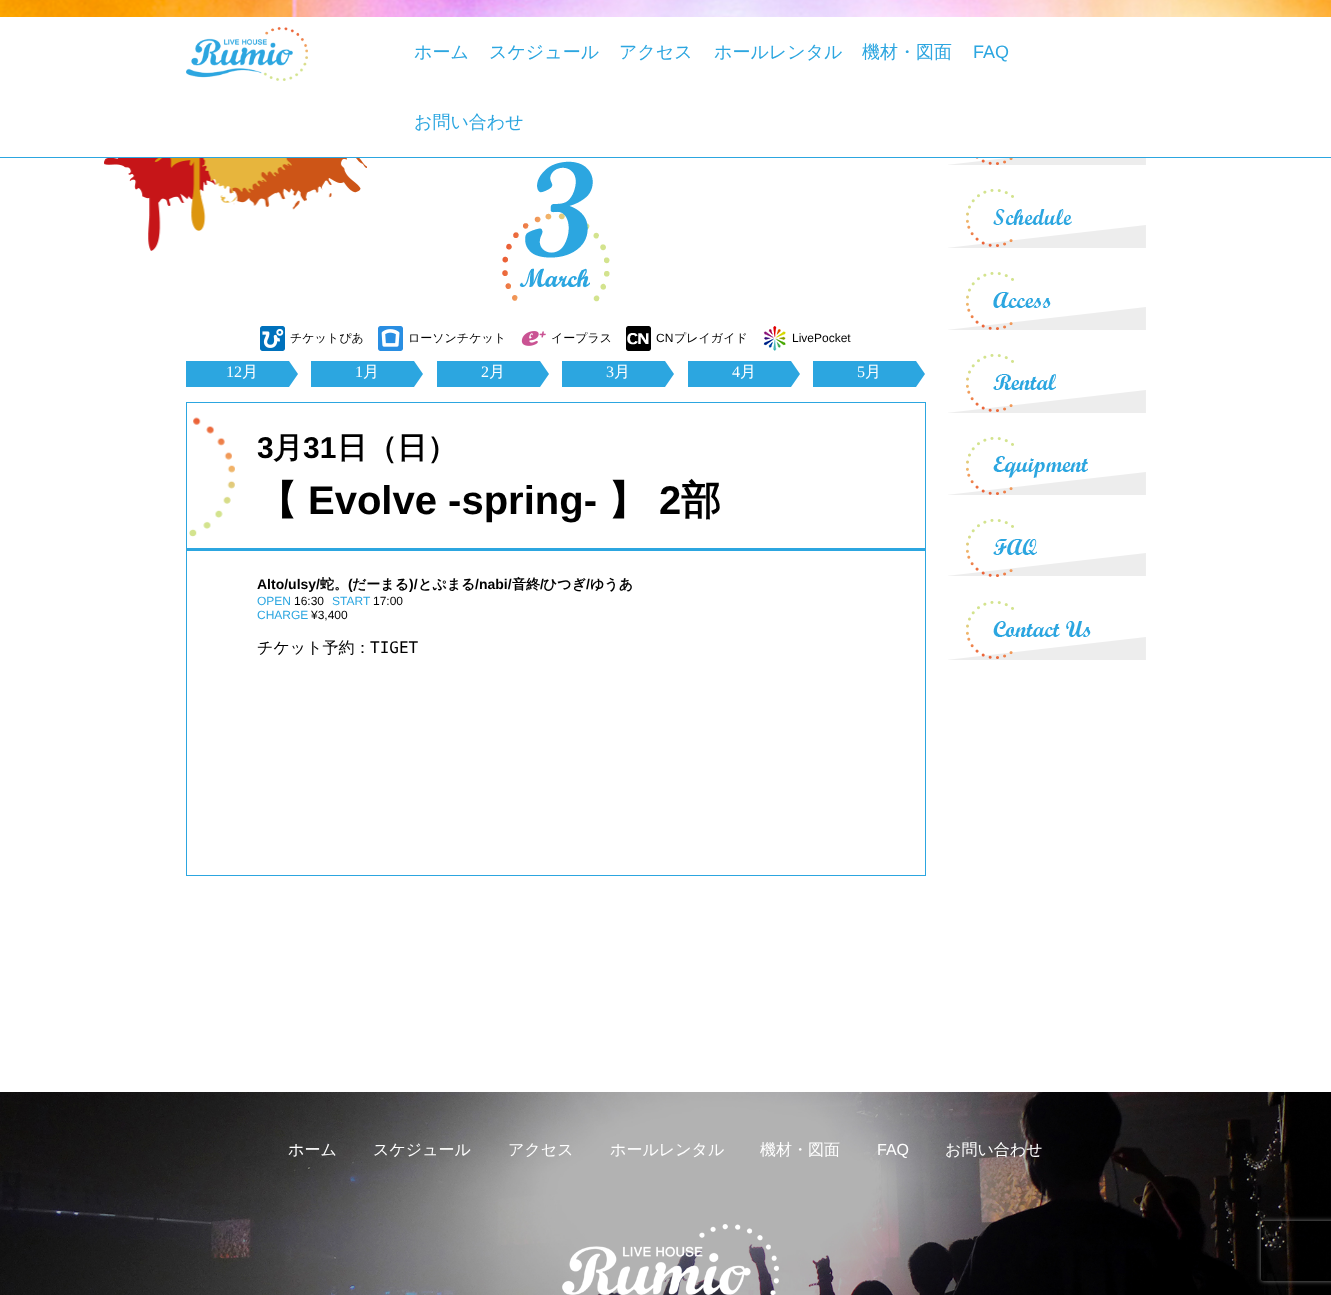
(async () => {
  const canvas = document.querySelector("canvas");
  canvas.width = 1331;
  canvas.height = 1295;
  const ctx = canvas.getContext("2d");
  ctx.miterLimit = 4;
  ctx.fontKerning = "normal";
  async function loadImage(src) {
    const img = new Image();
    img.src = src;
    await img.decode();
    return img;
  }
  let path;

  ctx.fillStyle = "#ffffff";
  ctx.fillRect(0, 0, 1331, 1295);
  ctx.fillStyle = "#2ca6e0";
  ctx.fillRect(0, 157, 1331, 1);
  ctx.drawImage(await loadImage("img/1.png"), 0, 0, 1331, 17);
  ctx.drawImage(await loadImage("img/2.png"), 186, 27, 122, 54);
  ctx.drawImage(await loadImage("img/3.png"), 104, 158, 263, 93);
  ctx.drawImage(await loadImage("img/4.png"), 502, 161, 108, 141);
  ctx.drawImage(await loadImage("img/5.png"), 260, 326, 25, 25);
  ctx.drawImage(await loadImage("img/6.png"), 378, 326, 25, 25);
  ctx.drawImage(await loadImage("img/7.png"), 521, 331, 25, 15);
  ctx.drawImage(await loadImage("img/8.png"), 626, 326, 25, 25);
  ctx.drawImage(await loadImage("img/9.png"), 763, 326, 23, 25);
  ctx.drawImage(await loadImage("img/10.png"), 186, 361, 112, 26);
  ctx.drawImage(await loadImage("img/10.png"), 311, 361, 112, 26);
  ctx.drawImage(await loadImage("img/10.png"), 437, 361, 112, 26);
  ctx.drawImage(await loadImage("img/10.png"), 562, 361, 112, 26);
  ctx.drawImage(await loadImage("img/10.png"), 688, 361, 112, 26);
  ctx.drawImage(await loadImage("img/10.png"), 813, 361, 112, 26);
  ctx.strokeStyle = "#2ca6e0";
  ctx.strokeRect(186.5, 402.5, 739, 473);
  ctx.drawImage(await loadImage("img/11.png"), 189, 417, 46, 120);
  ctx.fillRect(187, 548, 738, 3);
  ctx.drawImage(await loadImage("img/12.png"), 948, 158, 198, 7);
  ctx.drawImage(await loadImage("img/13.png"), 948, 189, 198, 59);
  ctx.drawImage(await loadImage("img/14.png"), 948, 272, 198, 58);
  ctx.drawImage(await loadImage("img/15.png"), 948, 354, 198, 59);
  ctx.drawImage(await loadImage("img/16.png"), 948, 437, 198, 58);
  ctx.drawImage(await loadImage("img/17.png"), 948, 519, 198, 58);
  ctx.drawImage(await loadImage("img/18.png"), 948, 601, 198, 59);
  ctx.drawImage(await loadImage("img/19.png"), 0, 1092, 1331, 203);
  ctx.drawImage(await loadImage("img/20.png"), 562, 1224, 217, 71);
  ctx.save();
  path = new Path2D("M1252 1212H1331V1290H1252ZM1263 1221H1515C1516 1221 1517 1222 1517 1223V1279C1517 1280 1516 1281 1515 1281H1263C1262 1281 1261 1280 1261 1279V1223C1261 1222 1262 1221 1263 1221Z");
  ctx.clip(path, "evenodd");
  ctx.fillStyle = "#808080";
  ctx.filter = "blur(2.5px)";
  ctx.beginPath();
  ctx.roundRect(1261, 1221, 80, 60, 2);
  ctx.fill();
  ctx.filter = "none";
  ctx.restore();
  ctx.font = "500 18px WenQuanYi Zen Hei";
  for (const [text, x, y] of [
    ["ホーム", 414, 58],
    ["スケジュール", 489, 58],
    ["アクセス", 619, 58],
    ["ホールレンタル", 714, 58],
    ["機材・図面", 862, 58],
  ]) {
    ctx.fillText(text, x, y);
  }
  ctx.font = "18px Liberation Sans";
  ctx.fillText("FAQ", 973, 58);
  ctx.font = "500 18px WenQuanYi Zen Hei";
  ctx.fillText("お問い合わせ", 414, 128);
  ctx.font = "500 12px WenQuanYi Zen Hei";
  ctx.fillStyle = "#000000";
  for (const [text, x, y] of [
    ["チケットぴあ", 290, 342],
    ["ローソンチケット", 408, 342],
    ["イープラス", 551, 342],
  ]) {
    ctx.fillText(text, x, y);
  }
  ctx.font = "12px Liberation Sans";
  ctx.fillText("CN", 656, 342);
  ctx.font = "500 12px WenQuanYi Zen Hei";
  ctx.fillText("プレイガイド", 674, 342);
  ctx.font = "12px Liberation Sans";
  ctx.fillText("LivePocket", 792, 342);
  ctx.font = "16px Liberation Serif";
  ctx.fillStyle = "#ffffff";
  ctx.fillText("12", 226, 377);
  ctx.font = "500 16px WenQuanYi Zen Hei";
  ctx.fillText("月", 242, 377);
  ctx.font = "16px Liberation Serif";
  ctx.fillText("1", 355, 377);
  ctx.font = "500 16px WenQuanYi Zen Hei";
  ctx.fillText("月", 363, 377);
  ctx.font = "16px Liberation Serif";
  ctx.fillText("2", 481, 377);
  ctx.font = "500 16px WenQuanYi Zen Hei";
  ctx.fillText("月", 489, 377);
  ctx.font = "16px Liberation Serif";
  ctx.fillText("3", 606, 377);
  ctx.font = "500 16px WenQuanYi Zen Hei";
  ctx.fillText("月", 614, 377);
  ctx.font = "16px Liberation Serif";
  ctx.fillText("4", 732, 377);
  ctx.font = "500 16px WenQuanYi Zen Hei";
  ctx.fillText("月", 740, 377);
  ctx.font = "16px Liberation Serif";
  ctx.fillText("5", 857, 377);
  ctx.font = "500 16px WenQuanYi Zen Hei";
  ctx.fillText("月", 865, 377);
  ctx.font = "bold 30px Liberation Sans";
  ctx.fillStyle = "#000000";
  ctx.fillText("3", 257, 458);
  ctx.font = "bold 30px WenQuanYi Zen Hei";
  ctx.fillText("月", 273, 458);
  ctx.font = "bold 30px Liberation Sans";
  ctx.fillText("31", 303, 458);
  ctx.font = "bold 30px WenQuanYi Zen Hei";
  ctx.fillText("日（日）", 337, 458);
  ctx.font = "bold 40px WenQuanYi Zen Hei";
  ctx.fillText("【", 257, 514);
  ctx.font = "bold 40px Liberation Sans";
  ctx.fillText("Evolve -spring-", 308, 514);
  ctx.font = "bold 40px WenQuanYi Zen Hei";
  ctx.fillText("】", 608, 514);
  ctx.font = "bold 40px Liberation Sans";
  ctx.fillText("2", 659, 514);
  ctx.font = "bold 40px WenQuanYi Zen Hei";
  ctx.fillText("部", 681, 514);
  ctx.font = "bold 14px Liberation Sans";
  ctx.fillText("Alto/ulsy/", 257, 589);
  ctx.font = "bold 14px WenQuanYi Zen Hei";
  ctx.fillText("蛇。", 320, 589);
  ctx.font = "bold 14px Liberation Sans";
  ctx.fillText("(", 348, 589);
  ctx.font = "bold 14px WenQuanYi Zen Hei";
  ctx.fillText("だーまる", 352, 589);
  ctx.font = "bold 14px Liberation Sans";
  ctx.fillText(")/", 409, 589);
  ctx.font = "bold 14px WenQuanYi Zen Hei";
  ctx.fillText("とぷまる", 418, 589);
  ctx.font = "bold 14px Liberation Sans";
  ctx.fillText("/nabi/", 475, 589);
  ctx.font = "bold 14px WenQuanYi Zen Hei";
  ctx.fillText("音終", 512, 589);
  ctx.font = "bold 14px Liberation Sans";
  ctx.fillText("/", 540, 589);
  ctx.font = "bold 14px WenQuanYi Zen Hei";
  ctx.fillText("ひつぎ", 543, 589);
  ctx.font = "bold 14px Liberation Sans";
  ctx.fillText("/", 586, 589);
  ctx.font = "bold 14px WenQuanYi Zen Hei";
  ctx.fillText("ゆうあ", 590, 589);
  ctx.font = "12px Liberation Sans";
  ctx.fillStyle = "#2ca6e0";
  ctx.fillText("OPEN", 257, 605);
  ctx.fillStyle = "#000000";
  ctx.fillText("16:30", 294, 605);
  ctx.fillStyle = "#2ca6e0";
  ctx.fillText("START", 332, 605);
  ctx.fillStyle = "#000000";
  ctx.fillText("17:00", 373, 605);
  ctx.fillStyle = "#2ca6e0";
  ctx.fillText("CHARGE", 257, 619);
  ctx.fillStyle = "#000000";
  ctx.fillText("¥3,400", 311, 619);
  ctx.font = "500 16px WenQuanYi Zen Hei";
  ctx.fillText("チケット予約：", 257, 653);
  ctx.font = "16px DejaVu Sans Mono";
  ctx.fillText("TIGET", 370, 653);
  ctx.font = "500 16px WenQuanYi Zen Hei";
  ctx.fillStyle = "#ffffff";
  for (const [text, x, y] of [
    ["ホーム", 288, 1155],
    ["スケジュール", 373, 1155],
    ["アクセス", 508, 1155],
    ["ホールレンタル", 610, 1155],
    ["機材・図面", 760, 1155],
  ]) {
    ctx.fillText(text, x, y);
  }
  ctx.font = "16px Liberation Sans";
  ctx.fillText("FAQ", 877, 1155);
  ctx.font = "500 16px WenQuanYi Zen Hei";
  ctx.fillText("お問い合わせ", 945, 1155);
})();
